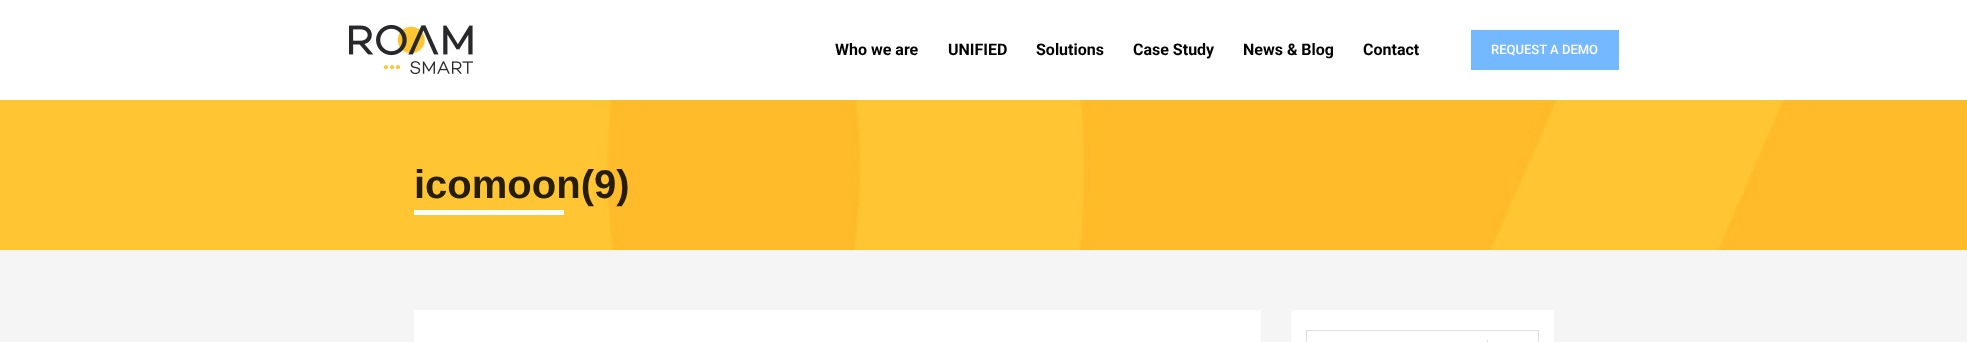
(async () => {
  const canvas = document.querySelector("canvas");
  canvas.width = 1967;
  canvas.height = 342;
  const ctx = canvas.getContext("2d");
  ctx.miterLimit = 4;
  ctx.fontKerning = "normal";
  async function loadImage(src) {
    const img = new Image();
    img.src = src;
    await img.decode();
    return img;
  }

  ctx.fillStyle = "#f5f5f5";
  ctx.fillRect(0, 0, 1967, 342);
  ctx.fillStyle = "#ffffff";
  ctx.fillRect(0, 0, 1967, 100);
  ctx.drawImage(await loadImage("img/1.png"), 349, 25, 124, 49);
  ctx.fillStyle = "#74b9ff";
  ctx.fillRect(1471, 30, 148, 40);
  ctx.drawImage(await loadImage("img/2.png"), 0, 100, 1967, 150);
  ctx.fillStyle = "#ffffff";
  ctx.fillRect(414, 210, 150, 5);
  ctx.fillRect(414, 310, 847, 32);
  ctx.beginPath();
  ctx.roundRect(1291, 310, 263, 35, 3);
  ctx.fill();
  ctx.strokeStyle = "#dddddd";
  ctx.strokeRect(1306.5, 330.5, 232, 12);
  ctx.fillStyle = "#dddddd";
  ctx.fillRect(1487, 340, 1, 2);
  ctx.font = "bold 16px Roboto";
  ctx.fillStyle = "#000000";
  for (const [text, x, y] of [
    ["Who we are", 835, 55],
    ["UNIFIED", 948, 55],
    ["Solutions", 1036, 55],
    ["Case Study", 1133, 55],
    ["News & Blog", 1243, 55],
    ["Contact", 1363, 55],
  ]) {
    ctx.fillText(text, x, y);
  }
  ctx.font = "500 13px Roboto";
  ctx.fillStyle = "#ffffff";
  ctx.fillText("REQUEST A DEMO", 1491, 54);
  ctx.font = "bold 40px Liberation Sans";
  ctx.fillStyle = "#261d07";
  ctx.fillText("icomoon(9)", 414, 198);
})();
